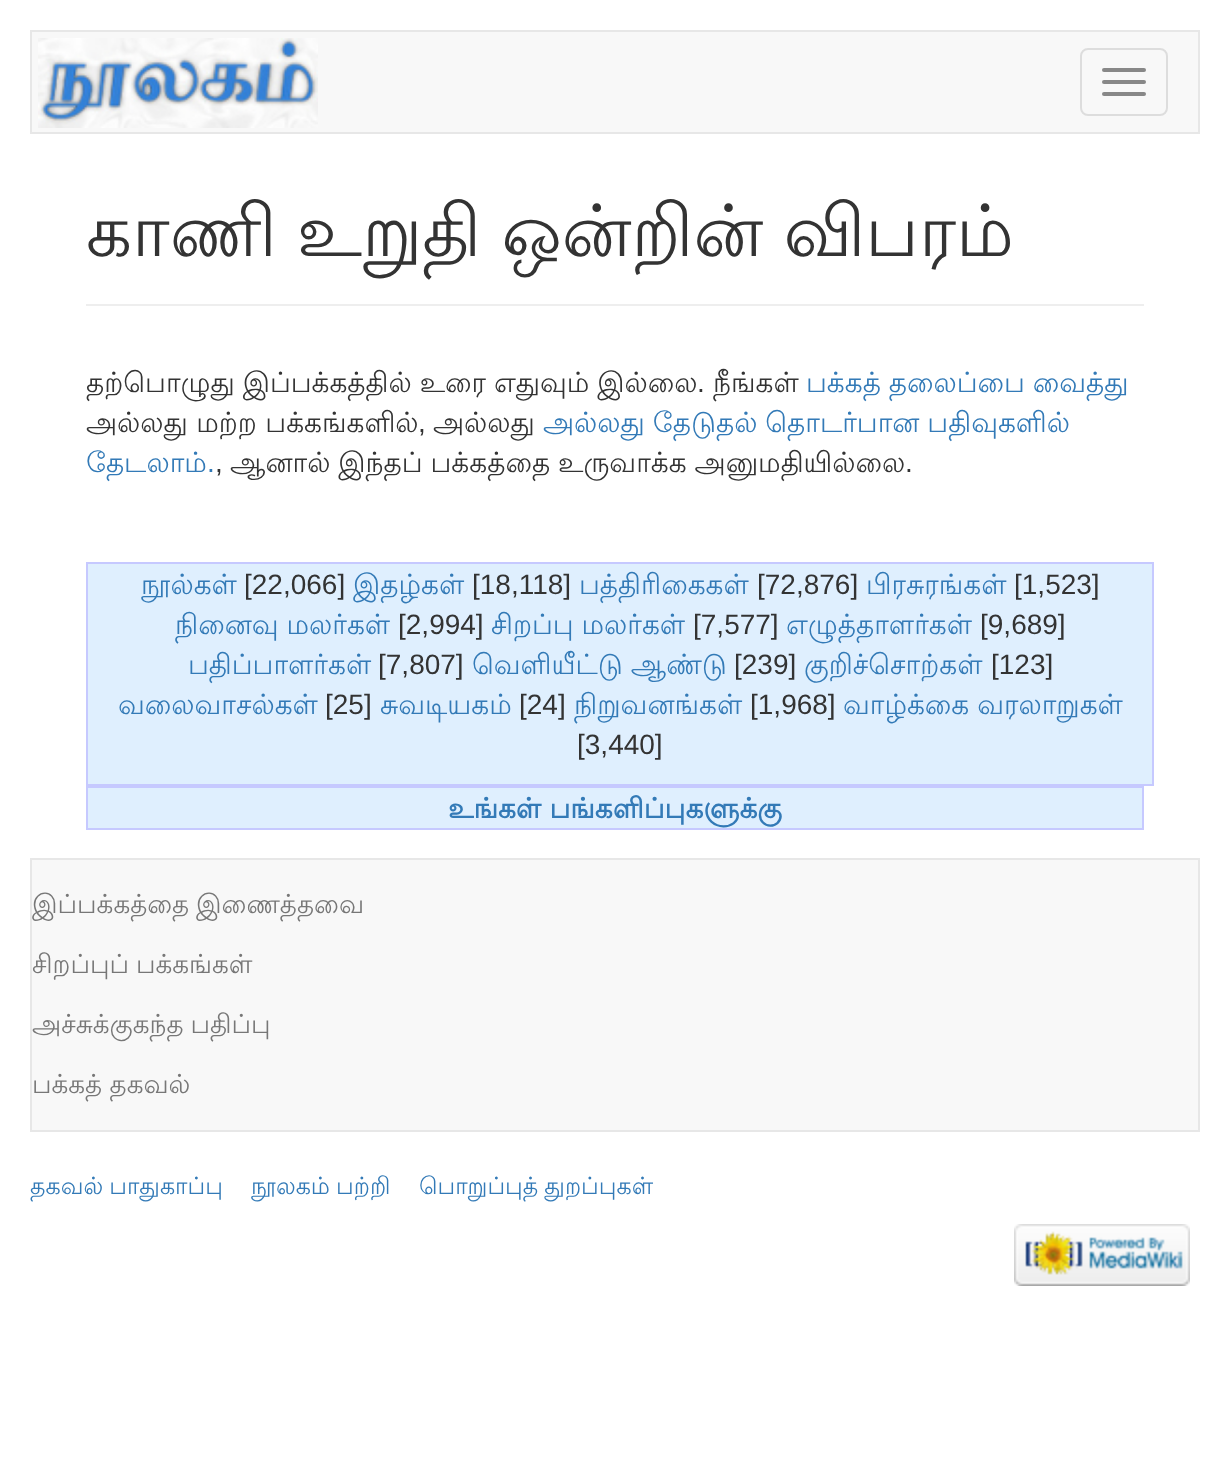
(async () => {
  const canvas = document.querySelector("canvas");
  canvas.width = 1229;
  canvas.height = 1465;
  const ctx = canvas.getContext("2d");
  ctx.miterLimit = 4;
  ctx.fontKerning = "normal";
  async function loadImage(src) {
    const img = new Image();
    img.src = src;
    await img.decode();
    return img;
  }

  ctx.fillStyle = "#ffffff";
  ctx.fillRect(0, 0, 1229, 1465);
  ctx.fillStyle = "#f8f8f8";
  ctx.beginPath();
  ctx.rect(31, 31, 1168, 102);
  ctx.fill();
  ctx.strokeStyle = "#e7e7e7";
  ctx.lineWidth = 2;
  ctx.stroke();
  ctx.drawImage(await loadImage("img/1.png"), 38, 38, 280, 90);
  ctx.beginPath();
  ctx.roundRect(1081, 49, 86, 66, 7);
  ctx.strokeStyle = "#dddddd";
  ctx.stroke();
  ctx.fillStyle = "#888888";
  ctx.beginPath();
  ctx.roundRect(1102, 68, 44, 4, 2);
  ctx.fill();
  ctx.beginPath();
  ctx.roundRect(1102, 80, 44, 4, 2);
  ctx.fill();
  ctx.beginPath();
  ctx.roundRect(1102, 92, 44, 4, 2);
  ctx.fill();
  for (const [x, y, w, h, color] of [
    [86, 304, 1058, 2, "#eeeeee"],
    [88, 564, 1064, 220, "#dfeffe"],
    [86, 562, 1068, 2, "#c6c9ff"],
    [1152, 562, 2, 224, "#c6c9ff"],
    [86, 784, 1068, 2, "#c6c9ff"],
    [86, 562, 2, 224, "#c6c9ff"],
    [88, 788, 1054, 40, "#dfeffe"],
    [86, 786, 1058, 2, "#c6c9ff"],
    [1142, 786, 2, 44, "#c6c9ff"],
    [86, 828, 1058, 2, "#c6c9ff"],
    [86, 786, 2, 44, "#c6c9ff"],
  ]) {
    ctx.fillStyle = color;
    ctx.fillRect(x, y, w, h);
  }
  ctx.fillStyle = "#f8f8f8";
  ctx.beginPath();
  ctx.rect(31, 859, 1168, 272);
  ctx.fill();
  ctx.strokeStyle = "#e7e7e7";
  ctx.stroke();
  ctx.drawImage(await loadImage("img/2.png"), 1014, 1224, 176, 62);
  ctx.wordSpacing = "-1.5px";
  ctx.font = "72px Lohit Tamil";
  ctx.fillStyle = "#333333";
  ctx.fillText("காணி உறுதி ஒன்றின் விபரம்", 86, 256);
  ctx.wordSpacing = "-0.5px";
  ctx.font = "28px Lohit Tamil";
  ctx.fillText("தற்பொழுது இப்பக்கத்தில் உரை எதுவும் இல்லை", 86, 392);
  ctx.wordSpacing = "0px";
  ctx.font = "28px Liberation Sans";
  ctx.fillText(".", 697, 392);
  ctx.font = "28px Lohit Tamil";
  ctx.fillText("நீங்கள்", 713, 392);
  ctx.wordSpacing = "-0.5px";
  ctx.fillStyle = "#337ab7";
  ctx.fillText("பக்கத் தலைப்பை வைத்து", 806, 392);
  ctx.wordSpacing = "0px";
  ctx.fillStyle = "#333333";
  ctx.fillText("அல்லது மற்ற பக்கங்களில்", 86, 432);
  ctx.font = "28px Liberation Sans";
  ctx.fillText(",", 418, 432);
  ctx.font = "28px Lohit Tamil";
  ctx.fillText("அல்லது", 433, 432);
  ctx.wordSpacing = "-0.5px";
  ctx.fillStyle = "#337ab7";
  ctx.fillText("அல்லது தேடுதல் தொடர்பான பதிவுகளில்", 543, 432);
  ctx.wordSpacing = "0px";
  ctx.fillText("தேடலாம்", 86, 472);
  ctx.font = "28px Liberation Sans";
  ctx.fillText(".", 207, 472);
  ctx.fillStyle = "#333333";
  ctx.fillText(",", 215, 472);
  ctx.wordSpacing = "-0.5px";
  ctx.font = "28px Lohit Tamil";
  ctx.fillText("ஆனால் இந்தப் பக்கத்தை உருவாக்க அனுமதியில்லை", 230, 472);
  ctx.wordSpacing = "0px";
  ctx.font = "28px Liberation Sans";
  ctx.fillText(".", 905, 472);
  ctx.font = "28px Lohit Tamil";
  ctx.fillStyle = "#337ab7";
  ctx.fillText("நூல்கள்", 141, 594);
  ctx.font = "28px Liberation Sans";
  ctx.fillStyle = "#333333";
  ctx.fillText("[22,066]", 244, 594);
  ctx.font = "28px Lohit Tamil";
  ctx.fillStyle = "#337ab7";
  ctx.fillText("இதழ்கள்", 353, 594);
  ctx.font = "28px Liberation Sans";
  ctx.fillStyle = "#333333";
  ctx.fillText("[18,118]", 472, 594);
  ctx.font = "28px Lohit Tamil";
  ctx.fillStyle = "#337ab7";
  ctx.fillText("பத்திரிகைகள்", 579, 594);
  ctx.font = "28px Liberation Sans";
  ctx.fillStyle = "#333333";
  ctx.fillText("[72,876]", 757, 594);
  ctx.font = "28px Lohit Tamil";
  ctx.fillStyle = "#337ab7";
  ctx.fillText("பிரசுரங்கள்", 866, 594);
  ctx.font = "28px Liberation Sans";
  ctx.fillStyle = "#333333";
  ctx.fillText("[1,523]", 1014, 594);
  ctx.wordSpacing = "-0.5px";
  ctx.font = "28px Lohit Tamil";
  ctx.fillStyle = "#337ab7";
  ctx.fillText("நினைவு மலர்கள்", 175, 634);
  ctx.wordSpacing = "0px";
  ctx.font = "28px Liberation Sans";
  ctx.fillStyle = "#333333";
  ctx.fillText("[2,994]", 398, 634);
  ctx.wordSpacing = "-0.5px";
  ctx.font = "28px Lohit Tamil";
  ctx.fillStyle = "#337ab7";
  ctx.fillText("சிறப்பு மலர்கள்", 491, 634);
  ctx.wordSpacing = "0px";
  ctx.font = "28px Liberation Sans";
  ctx.fillStyle = "#333333";
  ctx.fillText("[7,577]", 693, 634);
  ctx.font = "28px Lohit Tamil";
  ctx.fillStyle = "#337ab7";
  ctx.fillText("எழுத்தாளர்கள்", 786, 634);
  ctx.font = "28px Liberation Sans";
  ctx.fillStyle = "#333333";
  ctx.fillText("[9,689]", 980, 634);
  ctx.font = "28px Lohit Tamil";
  ctx.fillStyle = "#337ab7";
  ctx.fillText("பதிப்பாளர்கள்", 188, 674);
  ctx.font = "28px Liberation Sans";
  ctx.fillStyle = "#333333";
  ctx.fillText("[7,807]", 378, 674);
  ctx.wordSpacing = "-0.5px";
  ctx.font = "28px Lohit Tamil";
  ctx.fillStyle = "#337ab7";
  ctx.fillText("வெளியீட்டு ஆண்டு", 472, 674);
  ctx.wordSpacing = "0px";
  ctx.font = "28px Liberation Sans";
  ctx.fillStyle = "#333333";
  ctx.fillText("[239]", 734, 674);
  ctx.font = "28px Lohit Tamil";
  ctx.fillStyle = "#337ab7";
  ctx.fillText("குறிச்சொற்கள்", 804, 674);
  ctx.font = "28px Liberation Sans";
  ctx.fillStyle = "#333333";
  ctx.fillText("[123]", 991, 674);
  ctx.font = "28px Lohit Tamil";
  ctx.fillStyle = "#337ab7";
  ctx.fillText("வலைவாசல்கள்", 118, 714);
  ctx.font = "28px Liberation Sans";
  ctx.fillStyle = "#333333";
  ctx.fillText("[25]", 325, 714);
  ctx.font = "28px Lohit Tamil";
  ctx.fillStyle = "#337ab7";
  ctx.fillText("சுவடியகம்", 380, 714);
  ctx.font = "28px Liberation Sans";
  ctx.fillStyle = "#333333";
  ctx.fillText("[24]", 519, 714);
  ctx.font = "28px Lohit Tamil";
  ctx.fillStyle = "#337ab7";
  ctx.fillText("நிறுவனங்கள்", 574, 714);
  ctx.font = "28px Liberation Sans";
  ctx.fillStyle = "#333333";
  ctx.fillText("[1,968]", 750, 714);
  ctx.wordSpacing = "-0.5px";
  ctx.font = "28px Lohit Tamil";
  ctx.fillStyle = "#337ab7";
  ctx.fillText("வாழ்க்கை வரலாறுகள்", 843, 714);
  ctx.wordSpacing = "0px";
  ctx.font = "28px Liberation Sans";
  ctx.fillStyle = "#333333";
  ctx.fillText("[3,440]", 577, 754);
  ctx.font = "bold 28px Lohit Tamil";
  ctx.fillStyle = "#337ab7";
  ctx.fillText("உங்கள் பங்களிப்புகளுக்கு", 448, 818);
  ctx.wordSpacing = "-1px";
  ctx.font = "26.25px Lohit Tamil";
  ctx.fillStyle = "#777777";
  for (const [text, x, y] of [
    ["இப்பக்கத்தை இணைத்தவை", 32, 913],
    ["சிறப்புப் பக்கங்கள்", 32, 973],
    ["அச்சுக்குகந்த பதிப்பு", 32, 1033],
  ]) {
    ctx.fillText(text, x, y);
  }
  ctx.wordSpacing = "-0.5px";
  ctx.fillText("பக்கத் தகவல்", 32, 1093);
  ctx.wordSpacing = "-1px";
  ctx.font = "23.75px Lohit Tamil";
  ctx.fillStyle = "#337ab7";
  for (const [text, x, y] of [
    ["தகவல் பாதுகாப்பு", 30, 1194],
    ["நூலகம் பற்றி", 251, 1194],
    ["பொறுப்புத் துறப்புகள்", 419, 1194],
  ]) {
    ctx.fillText(text, x, y);
  }
})();
